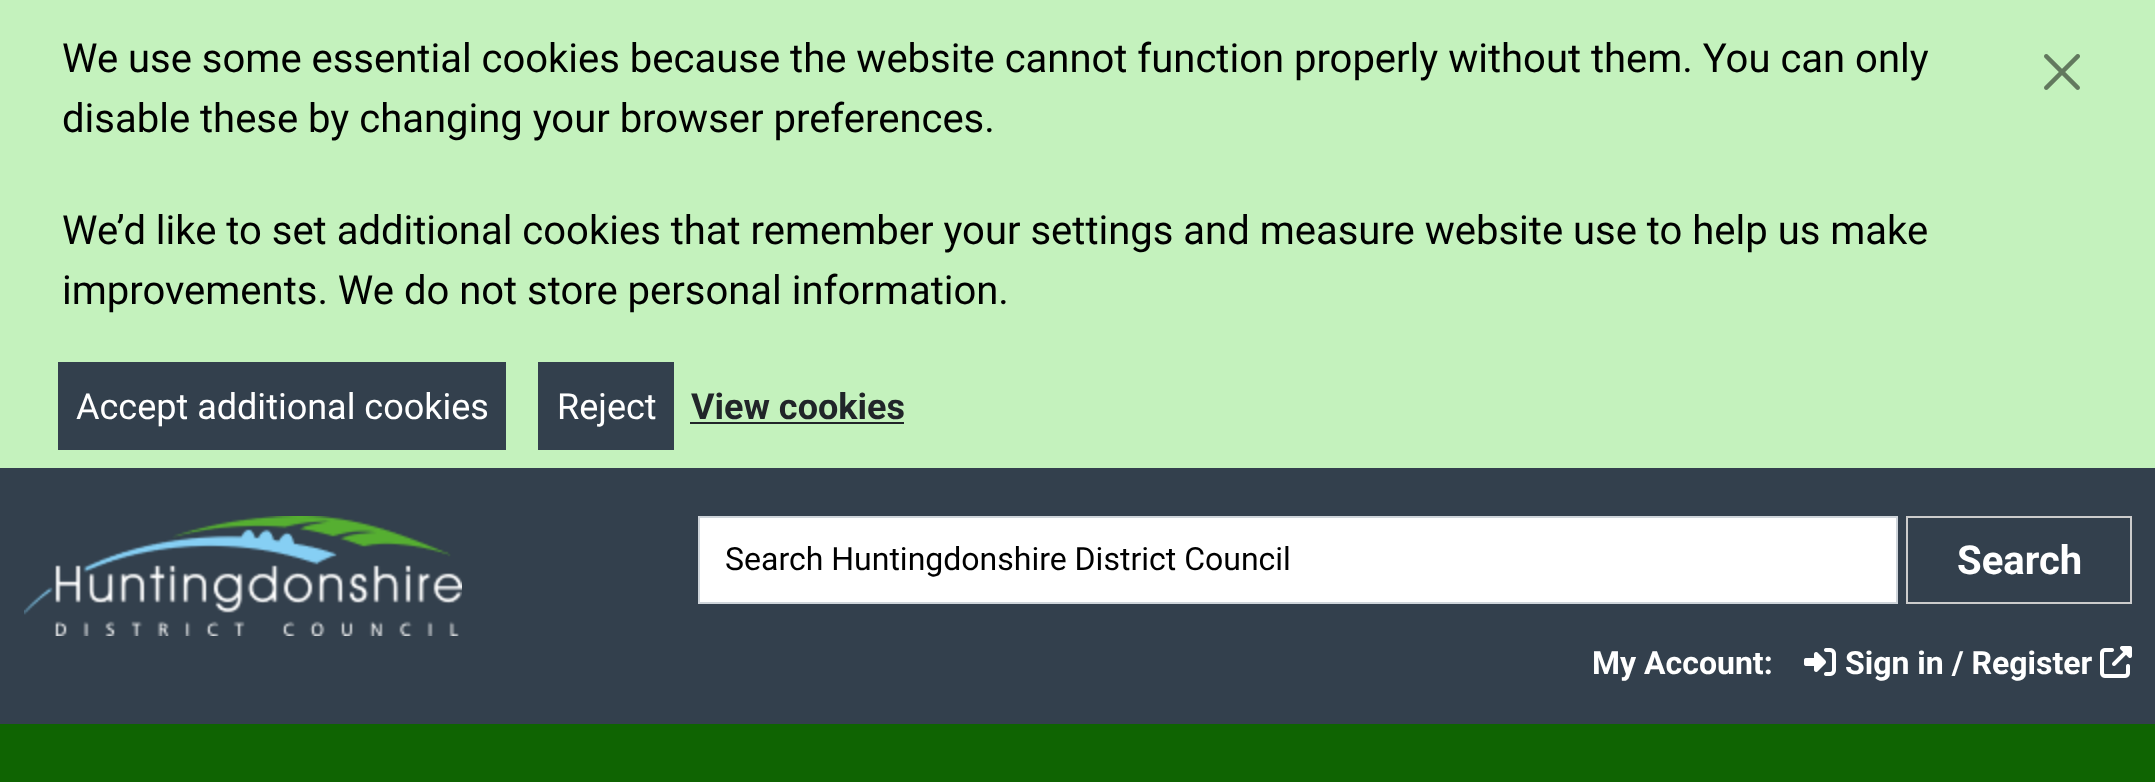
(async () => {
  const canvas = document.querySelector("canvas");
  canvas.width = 2155;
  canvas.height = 782;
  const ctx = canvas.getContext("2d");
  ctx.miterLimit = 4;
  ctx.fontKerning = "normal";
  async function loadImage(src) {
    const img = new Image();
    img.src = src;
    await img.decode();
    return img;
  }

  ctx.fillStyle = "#33404d";
  ctx.fillRect(0, 0, 2155, 782);
  for (const [x, y, w, h, color] of [
    [0, 0, 2155, 468, "#c4f2bd"],
    [58, 362, 448, 88, "#33404d"],
    [538, 362, 136, 88, "#33404d"],
    [690, 422, 214, 2, "#212529"],
  ]) {
    ctx.fillStyle = color;
    ctx.fillRect(x, y, w, h);
  }
  ctx.drawImage(await loadImage("img/1.png"), 2044, 54, 36, 36);
  ctx.drawImage(await loadImage("img/2.png"), 24, 516, 438, 120);
  ctx.fillStyle = "#ffffff";
  ctx.beginPath();
  ctx.rect(699, 517, 1198, 86);
  ctx.fill();
  ctx.strokeStyle = "#ced4da";
  ctx.lineWidth = 2;
  ctx.stroke();
  ctx.strokeStyle = "#cccccc";
  ctx.strokeRect(1907, 517, 224, 86);
  ctx.drawImage(await loadImage("img/3.png"), 1804, 648, 32, 28);
  ctx.drawImage(await loadImage("img/4.png"), 2100, 646, 32, 32);
  ctx.fillStyle = "#0f6402";
  ctx.fillRect(0, 724, 2155, 58);
  ctx.font = "40px Roboto";
  ctx.fillStyle = "#000000";
  for (const [text, x, y] of [
    ["We use some essential cookies because the website cannot function properly without them. You can only", 62, 72],
    ["disable these by changing your browser preferences.", 62, 132],
    ["We’d like to set additional cookies that remember your settings and measure website use to help us make", 62, 244],
    ["improvements. We do not store personal information.", 62, 304],
  ]) {
    ctx.fillText(text, x, y);
  }
  ctx.font = "36px Roboto";
  ctx.fillStyle = "#ffffff";
  ctx.fillText("Accept additional cookies", 76, 419);
  ctx.fillText("Reject", 557, 419);
  ctx.font = "bold 36px Roboto";
  ctx.fillStyle = "#212529";
  ctx.fillText("View cookies", 691, 419);
  ctx.font = "32px Roboto";
  ctx.fillStyle = "#000000";
  ctx.fillText("Search Huntingdonshire District Council", 725, 570);
  ctx.font = "bold 40px Roboto";
  ctx.fillStyle = "#ffffff";
  ctx.fillText("Search", 1957, 574);
  ctx.font = "bold 32px Roboto";
  ctx.fillText("My Account:", 1592, 674);
  ctx.fillText("Sign in / Register", 1845, 674);
})();
